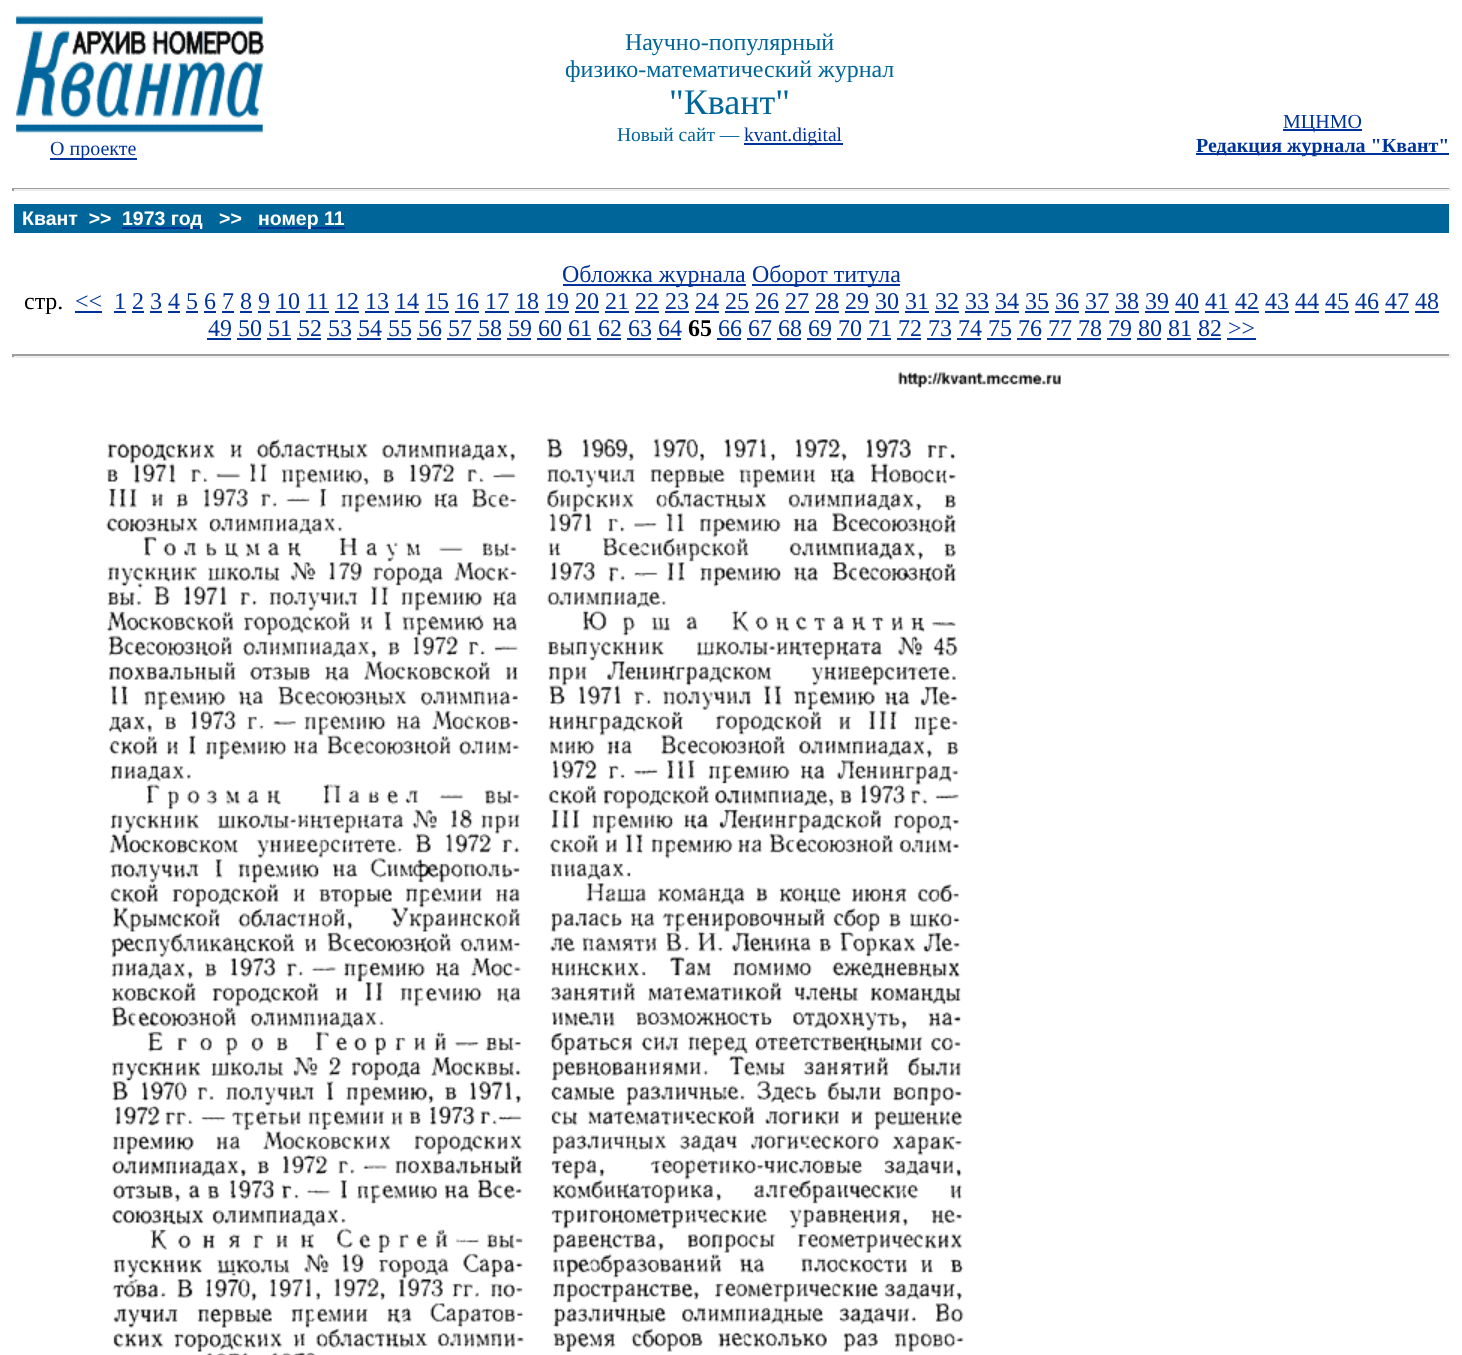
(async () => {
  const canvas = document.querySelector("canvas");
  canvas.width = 1462;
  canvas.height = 1355;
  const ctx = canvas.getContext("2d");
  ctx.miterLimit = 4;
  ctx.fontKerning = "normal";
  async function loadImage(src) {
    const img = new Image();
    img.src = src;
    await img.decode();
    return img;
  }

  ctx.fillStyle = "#ffffff";
  ctx.fillRect(0, 0, 1462, 1355);
  ctx.drawImage(await loadImage("img/1.png"), 15, 15, 249, 118);
  for (const [x, y, w, h, color] of [
    [50, 158, 87, 2, "#003399"],
    [744, 143, 99, 2, "#003399"],
    [1283, 129, 79, 2, "#003399"],
    [1196, 153, 253, 2, "#003399"],
    [12, 188, 1439, 1, "#9f9f9f"],
    [1449, 188, 2, 3, "#eeeeee"],
    [12, 189, 1439, 2, "#eeeeee"],
    [12, 188, 2, 3, "#9f9f9f"],
    [14, 204, 1435, 29, "#006699"],
    [122, 227, 81, 2, "#003399"],
    [258, 227, 87, 2, "#003399"],
    [563, 284, 183, 2, "#003399"],
    [752, 284, 148, 2, "#003399"],
    [75, 311, 27, 2, "#003399"],
    [114, 311, 12, 2, "#003399"],
    [132, 311, 12, 2, "#003399"],
    [150, 311, 12, 2, "#003399"],
    [168, 311, 12, 2, "#003399"],
    [186, 311, 12, 2, "#003399"],
    [204, 311, 12, 2, "#003399"],
    [222, 311, 12, 2, "#003399"],
    [240, 311, 12, 2, "#003399"],
    [258, 311, 12, 2, "#003399"],
    [276, 311, 24, 2, "#003399"],
    [306, 311, 23, 2, "#003399"],
    [335, 311, 24, 2, "#003399"],
    [365, 311, 24, 2, "#003399"],
    [395, 311, 24, 2, "#003399"],
    [425, 311, 24, 2, "#003399"],
    [455, 311, 24, 2, "#003399"],
    [485, 311, 24, 2, "#003399"],
    [515, 311, 24, 2, "#003399"],
    [545, 311, 24, 2, "#003399"],
    [575, 311, 24, 2, "#003399"],
    [605, 311, 24, 2, "#003399"],
    [635, 311, 24, 2, "#003399"],
    [665, 311, 24, 2, "#003399"],
    [695, 311, 24, 2, "#003399"],
    [725, 311, 24, 2, "#003399"],
    [755, 311, 24, 2, "#003399"],
    [785, 311, 24, 2, "#003399"],
    [815, 311, 24, 2, "#003399"],
    [845, 311, 24, 2, "#003399"],
    [875, 311, 24, 2, "#003399"],
    [905, 311, 24, 2, "#003399"],
    [935, 311, 24, 2, "#003399"],
    [965, 311, 24, 2, "#003399"],
    [995, 311, 24, 2, "#003399"],
    [1025, 311, 24, 2, "#003399"],
    [1055, 311, 24, 2, "#003399"],
    [1085, 311, 24, 2, "#003399"],
    [1115, 311, 24, 2, "#003399"],
    [1145, 311, 24, 2, "#003399"],
    [1175, 311, 24, 2, "#003399"],
    [1205, 311, 24, 2, "#003399"],
    [1235, 311, 24, 2, "#003399"],
    [1265, 311, 24, 2, "#003399"],
    [1295, 311, 24, 2, "#003399"],
    [1325, 311, 24, 2, "#003399"],
    [1355, 311, 24, 2, "#003399"],
    [1385, 311, 24, 2, "#003399"],
    [1415, 311, 24, 2, "#003399"],
    [207, 338, 24, 2, "#003399"],
    [717, 338, 24, 2, "#003399"],
    [237, 338, 24, 2, "#003399"],
    [267, 338, 24, 2, "#003399"],
    [297, 338, 24, 2, "#003399"],
    [327, 338, 24, 2, "#003399"],
    [357, 338, 24, 2, "#003399"],
    [387, 338, 24, 2, "#003399"],
    [417, 338, 24, 2, "#003399"],
    [447, 338, 24, 2, "#003399"],
    [477, 338, 24, 2, "#003399"],
    [507, 338, 24, 2, "#003399"],
    [537, 338, 24, 2, "#003399"],
    [567, 338, 24, 2, "#003399"],
    [597, 338, 24, 2, "#003399"],
    [627, 338, 24, 2, "#003399"],
    [657, 338, 24, 2, "#003399"],
    [747, 338, 24, 2, "#003399"],
    [777, 338, 24, 2, "#003399"],
    [807, 338, 24, 2, "#003399"],
    [837, 338, 24, 2, "#003399"],
    [867, 338, 24, 2, "#003399"],
    [897, 338, 24, 2, "#003399"],
    [927, 338, 24, 2, "#003399"],
    [957, 338, 24, 2, "#003399"],
    [987, 338, 24, 2, "#003399"],
    [1017, 338, 24, 2, "#003399"],
    [1047, 338, 24, 2, "#003399"],
    [1077, 338, 24, 2, "#003399"],
    [1107, 338, 24, 2, "#003399"],
    [1137, 338, 24, 2, "#003399"],
    [1167, 338, 24, 2, "#003399"],
    [1197, 338, 24, 2, "#003399"],
    [1227, 338, 29, 2, "#003399"],
    [12, 354, 1439, 2, "#9f9f9f"],
    [1449, 354, 2, 3, "#eeeeee"],
    [12, 356, 1439, 2, "#eeeeee"],
    [12, 354, 2, 3, "#9f9f9f"],
  ]) {
    ctx.fillStyle = color;
    ctx.fillRect(x, y, w, h);
  }
  ctx.drawImage(await loadImage("img/2.png"), 106, 371, 955, 984);
  ctx.font = "20px Liberation Serif";
  ctx.fillStyle = "#003399";
  ctx.fillText("О проекте", 50, 155);
  ctx.font = "24px Liberation Serif";
  ctx.fillStyle = "#006699";
  ctx.fillText("Научно-популярный", 625, 50);
  ctx.fillText("физико-математический журнал", 565, 77);
  ctx.font = "36px Liberation Serif";
  ctx.fillText("\"Квант\"", 669, 114);
  ctx.font = "19.5px Liberation Serif";
  ctx.fillText("Новый сайт —", 617, 141);
  ctx.fillStyle = "#003399";
  ctx.fillText("kvant.digital", 744, 141);
  ctx.font = "20px Liberation Serif";
  ctx.fillText("МЦНМО", 1283, 128);
  ctx.font = "bold 20px Liberation Serif";
  ctx.fillText("Редакция журнала \"Квант\"", 1196, 152);
  ctx.font = "bold 19.5px Liberation Sans";
  ctx.fillStyle = "#ffffff";
  for (const [text, x, y] of [
    ["Квант  >>", 22, 225],
    ["1973 год", 122, 225],
    [">>", 219, 225],
    ["номер 11", 258, 225],
  ]) {
    ctx.fillText(text, x, y);
  }
  ctx.font = "24px Liberation Serif";
  ctx.fillStyle = "#003399";
  ctx.fillText("Обложка журнала", 562, 282);
  ctx.fillText("Оборот титула", 752, 282);
  ctx.fillStyle = "#000000";
  ctx.fillText("стp.", 24, 309);
  ctx.fillStyle = "#003399";
  for (const [text, x, y] of [
    ["<<", 75, 309],
    ["1 2 3 4 5 6 7 8 9 10 11 12 13 14 15 16 17 18 19 20 21 22 23 24 25 26 27 28 29 30 31 32 33 34 35 36 37 38 39 40 41 42 43 44 45 46 47 48", 114, 309],
    ["49 50 51 52 53 54 55 56 57 58 59 60 61 62 63 64", 208, 336],
  ]) {
    ctx.fillText(text, x, y);
  }
  ctx.font = "bold 24px Liberation Serif";
  ctx.fillStyle = "#000000";
  ctx.fillText("65", 688, 336);
  ctx.font = "24px Liberation Serif";
  ctx.fillStyle = "#003399";
  ctx.fillText("66 67 68 69 70 71 72 73 74 75 76 77 78 79 80 81 82 >>", 718, 336);
})();
